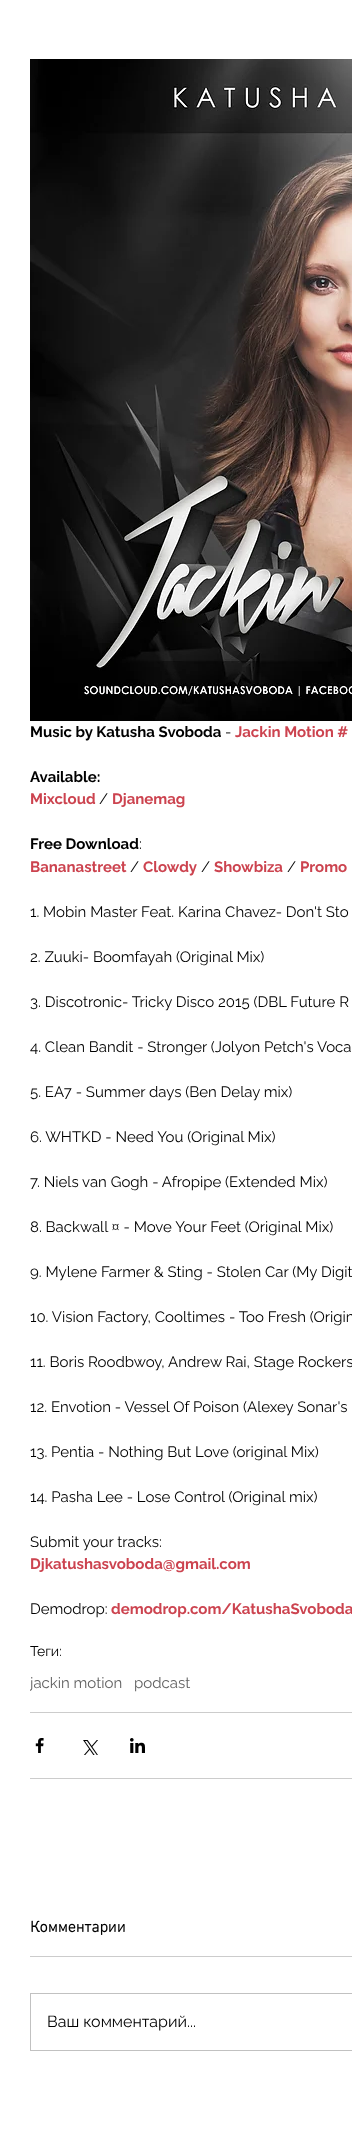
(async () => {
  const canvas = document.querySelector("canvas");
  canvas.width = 352;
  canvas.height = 2134;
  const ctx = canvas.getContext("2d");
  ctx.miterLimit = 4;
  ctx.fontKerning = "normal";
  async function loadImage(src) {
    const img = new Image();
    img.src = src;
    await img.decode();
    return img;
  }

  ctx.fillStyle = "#ffffff";
  ctx.fillRect(0, 0, 352, 2134);
  ctx.drawImage(await loadImage("img/1.png"), 30, 59, 322, 662);
  ctx.fillStyle = "#cccccc";
  ctx.fillRect(30, 1712, 322, 1);
  ctx.drawImage(await loadImage("img/2.png"), 35, 1738, 9, 15);
  ctx.drawImage(await loadImage("img/3.png"), 83, 1740, 15, 15);
  ctx.drawImage(await loadImage("img/4.png"), 130, 1738, 15, 15);
  ctx.fillRect(30, 1778, 322, 1);
  ctx.fillRect(30, 1956, 322, 1);
  ctx.strokeStyle = "#c1c1c1";
  ctx.strokeRect(30.5, 1993.5, 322, 57);
  ctx.font = "bold 15px Raleway";
  ctx.fillStyle = "#000000";
  ctx.fillText("Music by Katusha Svoboda", 30, 737);
  ctx.font = "15px Raleway";
  ctx.fillText("-", 225, 737);
  ctx.font = "bold 15px Raleway";
  ctx.fillStyle = "#cc434f";
  ctx.fillText("Jackin Motion #", 235, 737);
  ctx.fillStyle = "#000000";
  ctx.fillText("Available:", 30, 782);
  ctx.fillStyle = "#cc434f";
  ctx.fillText("Mixcloud", 30, 804);
  ctx.font = "15px Raleway";
  ctx.fillStyle = "#000000";
  ctx.fillText("/ ", 99, 804);
  ctx.font = "bold 15px Raleway";
  ctx.fillStyle = "#cc434f";
  ctx.fillText("Djanemag", 112, 804);
  ctx.fillStyle = "#000000";
  ctx.fillText("Free Download", 30, 849);
  ctx.font = "15px Raleway";
  ctx.fillText(":", 139, 849);
  ctx.font = "bold 15px Raleway";
  ctx.fillStyle = "#cc434f";
  ctx.fillText("Bananastreet", 30, 872);
  ctx.font = "15px Raleway";
  ctx.fillStyle = "#000000";
  ctx.fillText("/ ", 130, 872);
  ctx.font = "bold 15px Raleway";
  ctx.fillStyle = "#cc434f";
  ctx.fillText("Clowdy", 143, 872);
  ctx.font = "15px Raleway";
  ctx.fillStyle = "#000000";
  ctx.fillText("/", 201, 872);
  ctx.font = "bold 15px Raleway";
  ctx.fillStyle = "#cc434f";
  ctx.fillText("Showbiza", 214, 872);
  ctx.font = "15px Raleway";
  ctx.fillStyle = "#000000";
  ctx.fillText("/", 287, 872);
  ctx.font = "bold 15px Raleway";
  ctx.fillStyle = "#cc434f";
  ctx.fillText("Promo", 300, 872);
  ctx.font = "15px Raleway";
  ctx.fillStyle = "#000000";
  for (const [text, x, y] of [
    ["1. Mobin Master Feat. Karina Chavez- Don't Sto", 30, 917],
    ["2. Zuuki- Boomfayah (Original Mix)", 30, 962],
    ["3. Discotronic- Tricky Disco 2015 (DBL Future R", 30, 1007],
    ["4. Clean Bandit - Stronger (Jolyon Petch's Voca", 30, 1052],
    ["5. EA7 - Summer days (Ben Delay mix)", 30, 1097],
    ["6. WHTKD - Need You (Original Mix)", 30, 1142],
    ["7. Niels van Gogh - Afropipe (Extended Mix)", 30, 1187],
    ["8. Backwall ¤ - Move Your Feet (Original Mix)", 30, 1232],
    ["9. Mylene Farmer & Sting - Stolen Car (My Digit", 30, 1277],
    ["10. Vision Factory, Cooltimes - Too Fresh (Origin", 30, 1322],
    ["11. Boris Roodbwoy, Andrew Rai, Stage Rockers", 30, 1367],
    ["12. Envotion - Vessel Of Poison (Alexey Sonar's", 30, 1412],
    ["13. Pentia - Nothing But Love (original Mix)", 30, 1457],
    ["14. Pasha Lee - Lose Control (Original mix)", 30, 1502],
    ["Submit your tracks:", 30, 1547],
  ]) {
    ctx.fillText(text, x, y);
  }
  ctx.font = "bold 15px Raleway";
  ctx.fillStyle = "#cc434f";
  ctx.fillText("Djkatushasvoboda@gmail.com", 30, 1569);
  ctx.font = "15px Raleway";
  ctx.fillStyle = "#000000";
  ctx.fillText("Demodrop:", 30, 1614);
  ctx.font = "bold 15px Raleway";
  ctx.fillStyle = "#cc434f";
  ctx.fillText("demodrop.com/KatushaSvoboda", 111, 1614);
  ctx.font = "14px Raleway";
  ctx.fillStyle = "#000000";
  ctx.fillText("Теги:", 30, 1656);
  ctx.save();
  ctx.beginPath();
  ctx.rect(30, 1674, 92, 18);
  ctx.clip();
  ctx.font = "15px Raleway";
  ctx.fillStyle = "#616161";
  ctx.fillText("jackin motion", 30, 1688);
  ctx.restore();
  ctx.font = "15px Raleway";
  ctx.fillStyle = "#616161";
  ctx.fillText("podcast", 134, 1688);
  ctx.font = "bold 16px 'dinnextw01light'";
  ctx.fillStyle = "#000000";
  ctx.fillText("Комментарии", 30, 1932);
  ctx.font = "16px Raleway";
  ctx.fillText("Ваш комментарий...", 47, 2027);
})();
